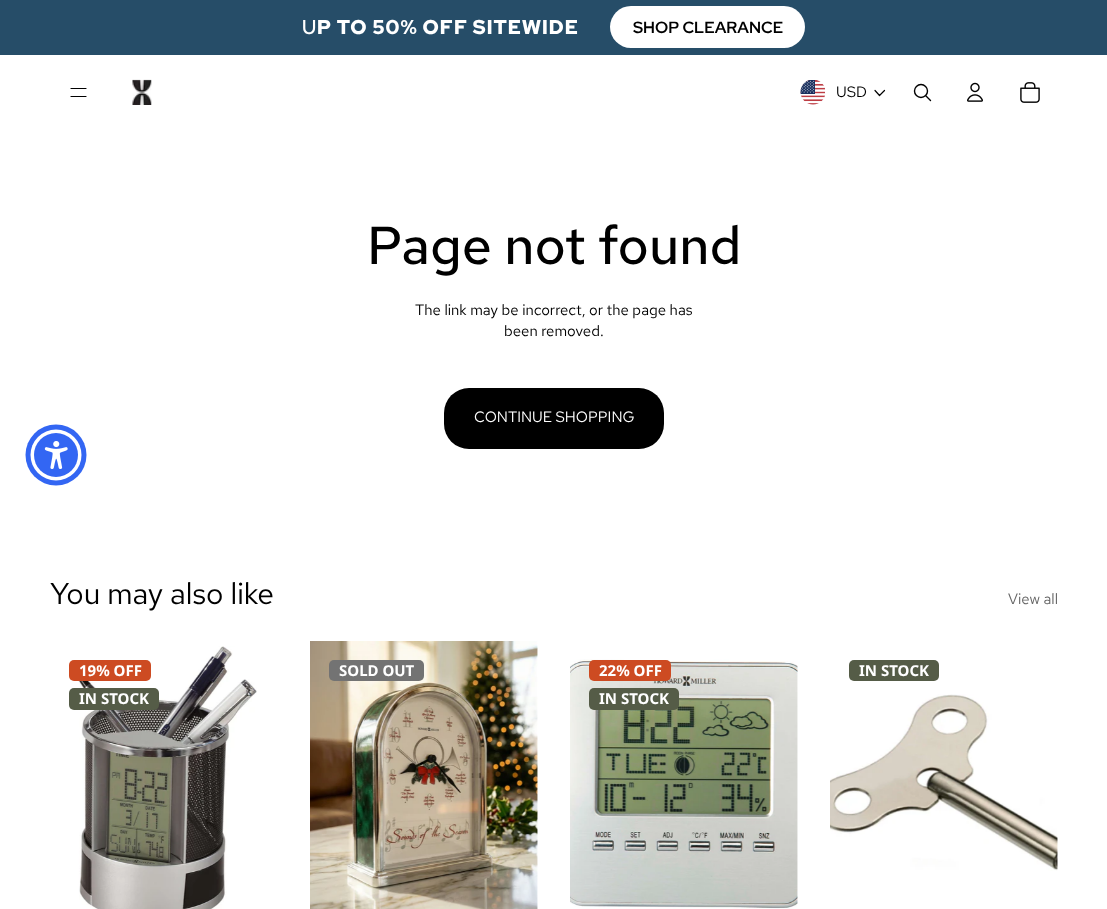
(async () => {
  const canvas = document.querySelector("canvas");
  canvas.width = 1107;
  canvas.height = 909;
  const ctx = canvas.getContext("2d");
  ctx.miterLimit = 4;
  ctx.fontKerning = "normal";
  async function loadImage(src) {
    const img = new Image();
    img.src = src;
    await img.decode();
    return img;
  }
  let path;

  ctx.fillStyle = "#ffffff";
  ctx.fillRect(0, 0, 1107, 909);
  ctx.fillStyle = "#264d68";
  ctx.fillRect(0, 0, 1107, 55);
  ctx.fillStyle = "#ffffff";
  ctx.beginPath();
  ctx.roundRect(610, 6, 195, 42, 21);
  ctx.fill();
  path = new Path2D("M71 88.5H86M71 96.5H86");
  ctx.strokeStyle = "#000000";
  ctx.lineWidth = 1.2;
  ctx.lineCap = "round";
  ctx.stroke(path);
  ctx.drawImage(await loadImage("img/1.png"), 132, 79, 20, 26);
  ctx.drawImage(await loadImage("img/2.png"), 800, 80, 25, 25);
  path = new Path2D("M884.5 90.5L879.5 95.5L875 90.5");
  ctx.lineJoin = "round";
  ctx.stroke(path);
  ctx.beginPath();
  ctx.arc(921, 91, 6.5, 0, Math.PI * 2);
  ctx.lineWidth = 1.4;
  ctx.stroke();
  path = new Path2D("M926 96L930.5 100.5");
  ctx.stroke(path);
  ctx.drawImage(await loadImage("img/3.png"), 967, 82, 16, 20);
  ctx.drawImage(await loadImage("img/4.png"), 1020, 82, 20, 21);
  ctx.fillStyle = "#000000";
  ctx.beginPath();
  ctx.roundRect(444, 388, 220, 61, 25);
  ctx.fill();
  ctx.drawImage(await loadImage("img/5.png"), 78, 646, 179, 263);
  ctx.fillStyle = "#cd4b22";
  ctx.beginPath();
  ctx.roundRect(69, 660, 82, 21, 5);
  ctx.fill();
  ctx.fillStyle = "#555c47";
  ctx.beginPath();
  ctx.roundRect(69, 688, 90, 22, 5);
  ctx.fill();
  ctx.drawImage(await loadImage("img/6.png"), 310, 641, 228, 268);
  ctx.fillStyle = "#737373";
  ctx.beginPath();
  ctx.roundRect(329, 660, 95, 21, 5);
  ctx.fill();
  ctx.drawImage(await loadImage("img/7.png"), 570, 659, 228, 250);
  ctx.fillStyle = "#cd4b22";
  ctx.beginPath();
  ctx.roundRect(589, 660, 82, 21, 5);
  ctx.fill();
  ctx.fillStyle = "#555c47";
  ctx.beginPath();
  ctx.roundRect(589, 688, 90, 22, 5);
  ctx.fill();
  ctx.beginPath();
  ctx.roundRect(849, 660, 90, 21, 5);
  ctx.fill();
  ctx.drawImage(await loadImage("img/8.png"), 830, 694, 228, 177);
  ctx.fillStyle = "#3366f3";
  ctx.beginPath();
  ctx.arc(56, 455, 30.5, 0, Math.PI * 2);
  ctx.fill();
  ctx.fillStyle = "#ffffff";
  ctx.beginPath();
  ctx.arc(56, 455, 25.5, 0, Math.PI * 2);
  ctx.fill();
  ctx.fillStyle = "#3366f3";
  ctx.beginPath();
  ctx.arc(56, 455, 22, 0, Math.PI * 2);
  ctx.fill();
  ctx.drawImage(await loadImage("img/9.png"), 44, 441, 24, 28);
  ctx.letterSpacing = "1px";
  ctx.font = "600 20px Red Hat Display";
  ctx.fillStyle = "#ffffff";
  ctx.fillText("U", 302, 34);
  ctx.font = "900 20px Red Hat Display";
  ctx.fillText("P TO 50% OFF SITEWIDE", 317, 34);
  ctx.letterSpacing = "0px";
  ctx.font = "bold 16.25px Red Hat Display";
  ctx.fillStyle = "#000000";
  ctx.fillText("SHOP CLEARANCE", 633, 33);
  ctx.font = "15px Red Hat Text";
  ctx.fillText("USD", 836, 97);
  ctx.font = "500 53.25px Red Hat Text";
  ctx.fillText("Page not found", 367, 264);
  ctx.font = "15px Red Hat Text";
  ctx.fillText("The link may be incorrect, or the page has", 415, 315);
  ctx.fillText("been removed.", 504, 336);
  ctx.fillStyle = "#ffffff";
  ctx.fillText("CONTINUE SHOPPING", 474, 422);
  ctx.font = "30px Red Hat Text";
  ctx.fillStyle = "#000000";
  ctx.fillText("You may also like", 50, 604);
  ctx.font = "15px Red Hat Text";
  ctx.fillStyle = "#666666";
  ctx.fillText("View all", 1008, 604);
  ctx.font = "bold 15px Noto Sans";
  ctx.fillStyle = "#ffffff";
  for (const [text, x, y] of [
    ["19% OFF", 79, 676],
    ["IN STOCK", 79, 704],
    ["SOLD OUT", 339, 676],
    ["22% OFF", 599, 676],
    ["IN STOCK", 599, 704],
    ["IN STOCK", 859, 676],
  ]) {
    ctx.fillText(text, x, y);
  }
})();
